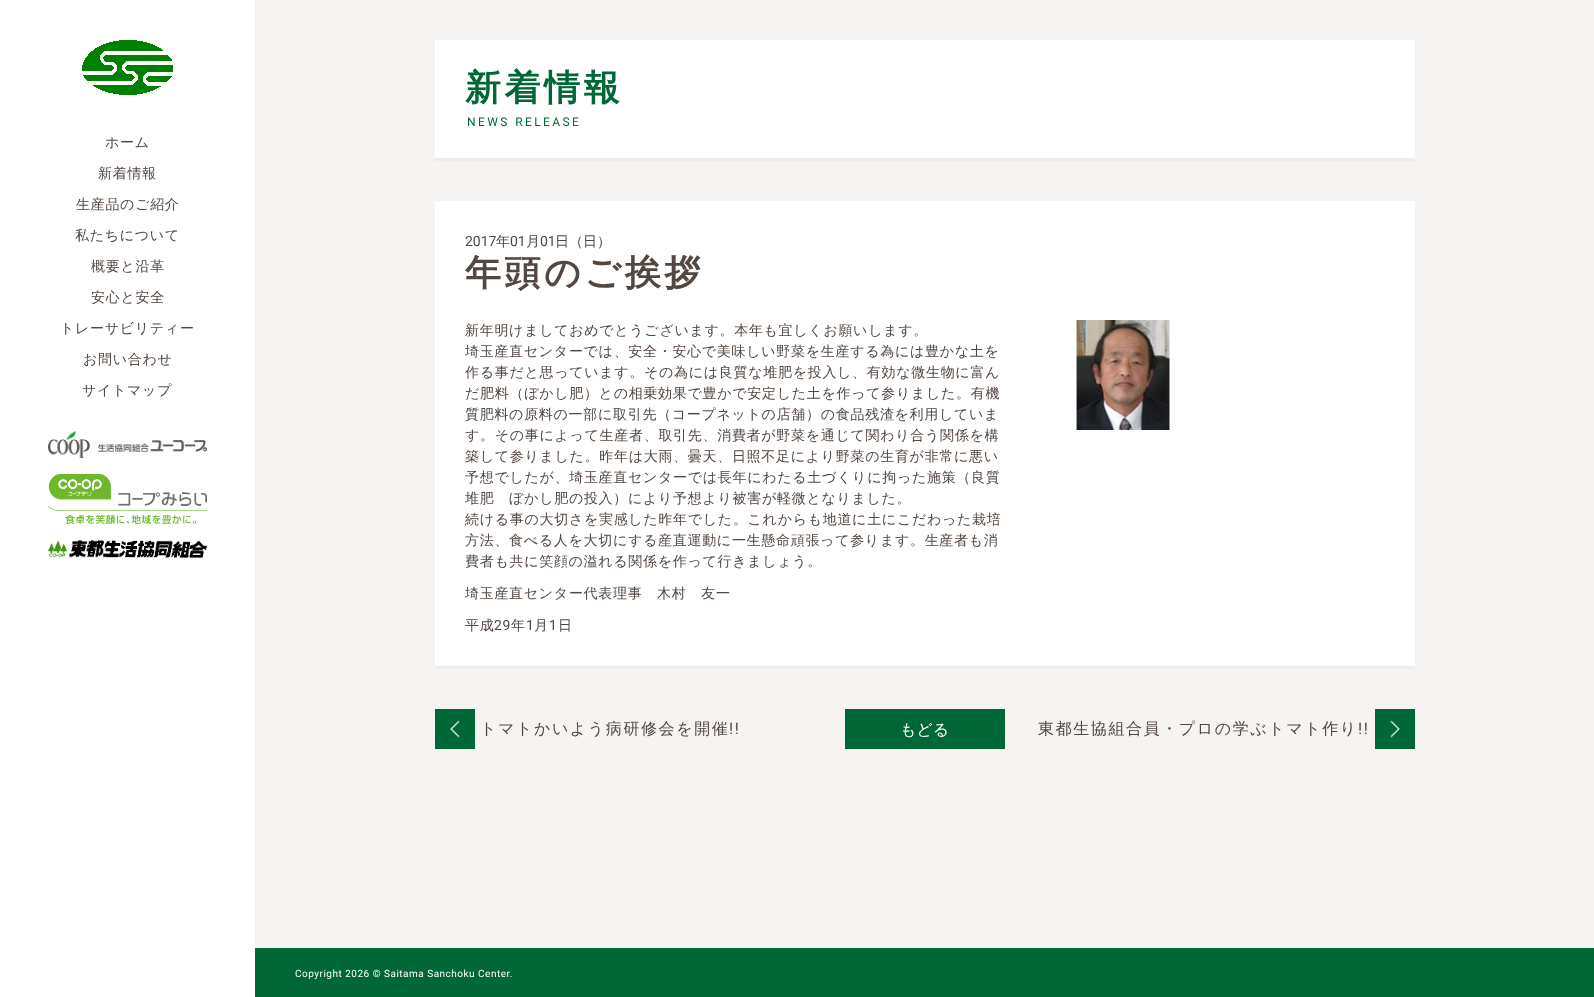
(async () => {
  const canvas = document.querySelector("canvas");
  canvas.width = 1594;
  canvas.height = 997;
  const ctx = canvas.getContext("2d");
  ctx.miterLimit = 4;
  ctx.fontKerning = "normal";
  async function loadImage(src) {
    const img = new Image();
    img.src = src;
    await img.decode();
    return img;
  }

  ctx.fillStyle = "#f6f4f3";
  ctx.fillRect(0, 0, 1594, 997);
  ctx.fillStyle = "#ffffff";
  ctx.fillRect(0, 0, 255, 997);
  ctx.drawImage(await loadImage("img/1.png"), 82, 40, 91, 55);
  ctx.drawImage(await loadImage("img/2.png"), 48, 431, 159, 27);
  ctx.drawImage(await loadImage("img/3.png"), 48, 474, 159, 50);
  ctx.drawImage(await loadImage("img/4.png"), 48, 540, 159, 18);
  for (const [x, y, w, h, color] of [
    [435, 40, 980, 118, "#ffffff"],
    [435, 158, 980, 3, "#eeebea"],
    [435, 201, 980, 465, "#ffffff"],
    [435, 666, 980, 3, "#eeebea"],
  ]) {
    ctx.fillStyle = color;
    ctx.fillRect(x, y, w, h);
  }
  ctx.drawImage(await loadImage("img/5.png"), 1075, 320, 95, 110);
  ctx.fillStyle = "#006837";
  ctx.fillRect(435, 709, 40, 40);
  ctx.drawImage(await loadImage("img/6.png"), 450, 720, 10, 18);
  ctx.fillRect(845, 709, 160, 40);
  ctx.fillRect(1375, 709, 40, 40);
  ctx.drawImage(await loadImage("img/7.png"), 1390, 720, 10, 18);
  ctx.fillRect(255, 948, 1339, 49);
  ctx.letterSpacing = "0.7px";
  ctx.font = "500 14px WenQuanYi Zen Hei";
  ctx.fillStyle = "#534741";
  for (const [text, x, y] of [
    ["ホーム", 105, 147],
    ["新着情報", 98, 178],
    ["生産品のご紹介", 76, 209],
    ["私たちについて", 75, 240],
    ["概要と沿革", 91, 271],
    ["安心と安全", 91, 302],
    ["トレーサビリティー", 60, 333],
    ["お問い合わせ", 83, 364],
    ["サイトマップ", 82, 395],
  ]) {
    ctx.fillText(text, x, y);
  }
  ctx.letterSpacing = "3.5px";
  ctx.font = "bold 36px WenQuanYi Zen Hei";
  ctx.fillStyle = "#006837";
  ctx.fillText("新着情報", 465, 100);
  ctx.letterSpacing = "2.4px";
  ctx.font = "12px Roboto";
  ctx.fillText("NEWS RELEASE", 467, 126);
  ctx.letterSpacing = "0px";
  ctx.font = "14px Roboto";
  ctx.fillStyle = "#534741";
  ctx.fillText("2017", 465, 246);
  ctx.font = "500 14px WenQuanYi Zen Hei";
  ctx.fillText("年", 496, 246);
  ctx.font = "14px Roboto";
  ctx.fillText("01", 510, 246);
  ctx.font = "500 14px WenQuanYi Zen Hei";
  ctx.fillText("月", 526, 246);
  ctx.font = "14px Roboto";
  ctx.fillText("01", 540, 246);
  ctx.font = "500 14px WenQuanYi Zen Hei";
  ctx.fillText("日（日）", 555, 246);
  ctx.letterSpacing = "3.5px";
  ctx.font = "bold 36px WenQuanYi Zen Hei";
  ctx.fillText("年頭のご挨拶", 465, 285);
  ctx.letterSpacing = "0.7px";
  ctx.font = "500 14px WenQuanYi Zen Hei";
  for (const [text, x, y] of [
    ["新年明けましておめでとうございます。本年も宜しくお願いします。", 465, 335],
    ["埼玉産直センターでは、安全・安心で美味しい野菜を生産する為には豊かな土を", 465, 356],
    ["作る事だと思っています。その為には良質な堆肥を投入し、有効な微生物に富ん", 465, 377],
    ["だ肥料（ぼかし肥）との相乗効果で豊かで安定した土を作って参りました。有機", 465, 398],
    ["質肥料の原料の一部に取引先（コープネットの店舗）の食品残渣を利用していま", 465, 419],
    ["す。その事によって生産者、取引先、消費者が野菜を通じて関わり合う関係を構", 465, 440],
    ["築して参りました。昨年は大雨、曇天、日照不足により野菜の生育が非常に悪い", 465, 461],
    ["予想でしたが、埼玉産直センターでは長年にわたる土づくりに拘った施策（良質", 465, 482],
    ["堆肥　ぼかし肥の投入）により予想より被害が軽微となりました。", 465, 503],
    ["続ける事の大切さを実感した昨年でした。これからも地道に土にこだわった栽培", 465, 524],
    ["方法、食べる人を大切にする産直運動に一生懸命頑張って参ります。生産者も消", 465, 545],
    ["費者も共に笑顔の溢れる関係を作って行きましょう。", 465, 566],
    ["埼玉産直センター代表理事　木村　友一", 465, 598],
    ["平成", 465, 630],
  ]) {
    ctx.fillText(text, x, y);
  }
  ctx.font = "14px Roboto";
  ctx.fillText("29", 494, 630);
  ctx.font = "500 14px WenQuanYi Zen Hei";
  ctx.fillText("年", 511, 630);
  ctx.font = "14px Roboto";
  ctx.fillText("1", 526, 630);
  ctx.font = "500 14px WenQuanYi Zen Hei";
  ctx.fillText("月", 534, 630);
  ctx.font = "14px Roboto";
  ctx.fillText("1", 549, 630);
  ctx.font = "500 14px WenQuanYi Zen Hei";
  ctx.fillText("日", 558, 630);
  ctx.letterSpacing = "1.6px";
  ctx.font = "500 16px WenQuanYi Zen Hei";
  ctx.fillText("トマトかいよう病研修会を開催", 480, 734);
  ctx.font = "16px Roboto";
  ctx.fillText("!!", 729, 734);
  ctx.letterSpacing = "0px";
  ctx.font = "500 16px WenQuanYi Zen Hei";
  ctx.fillStyle = "#ffffff";
  ctx.fillText("もどる", 900, 735);
  ctx.letterSpacing = "1.6px";
  ctx.fillStyle = "#534741";
  ctx.fillText("東都生協組合員・プロの学ぶトマト作り", 1038, 734);
  ctx.font = "16px Roboto";
  ctx.fillText("!!", 1358, 734);
  ctx.letterSpacing = "0.5px";
  ctx.font = "10px Roboto";
  ctx.fillStyle = "#ffffff";
  ctx.fillText("Copyright 2026 © Saitama Sanchoku Center.", 295, 977);
})();
